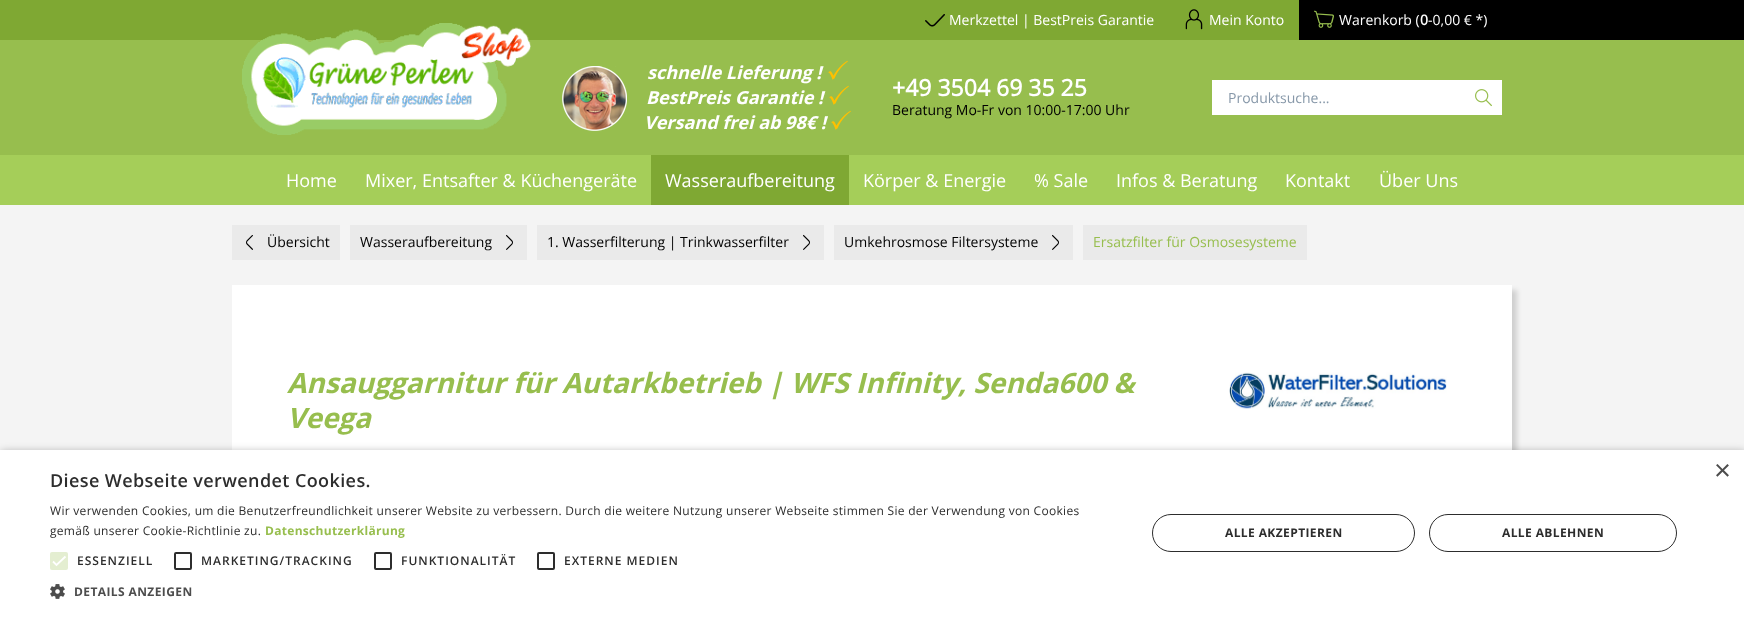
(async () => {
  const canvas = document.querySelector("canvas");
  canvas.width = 1744;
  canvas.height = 617;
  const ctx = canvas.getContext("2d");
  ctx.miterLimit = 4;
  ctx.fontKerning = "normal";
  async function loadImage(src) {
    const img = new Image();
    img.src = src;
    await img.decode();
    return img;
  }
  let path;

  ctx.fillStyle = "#f4f4f4";
  ctx.fillRect(0, 0, 1744, 617);
  ctx.fillStyle = "#7fa833";
  ctx.fillRect(0, 0, 1299, 40);
  ctx.drawImage(await loadImage("img/1.png"), 925, 14, 20, 13);
  ctx.drawImage(await loadImage("img/2.png"), 1185, 9, 18, 21);
  ctx.fillStyle = "#000000";
  ctx.fillRect(1299, 0, 445, 40);
  ctx.drawImage(await loadImage("img/3.png"), 1314, 10, 20, 18);
  ctx.fillStyle = "#97be4e";
  ctx.fillRect(0, 40, 1744, 115);
  ctx.drawImage(await loadImage("img/4.png"), 242, 23, 289, 112);
  ctx.drawImage(await loadImage("img/5.png"), 562, 66, 65, 65);
  ctx.drawImage(await loadImage("img/6.png"), 828, 60, 20, 20);
  ctx.drawImage(await loadImage("img/6.png"), 829, 85, 20, 20);
  ctx.drawImage(await loadImage("img/6.png"), 831, 110, 20, 20);
  ctx.fillStyle = "#ffffff";
  ctx.fillRect(1212, 80, 290, 35);
  ctx.drawImage(await loadImage("img/7.png"), 1475, 89, 17, 18);
  for (const [x, y, w, h, color] of [
    [0, 155, 1744, 50, "#a5ce59"],
    [651, 155, 198, 50, "#7fa833"],
    [232, 225, 108, 35, "#eaeaea"],
  ]) {
    ctx.fillStyle = color;
    ctx.fillRect(x, y, w, h);
  }
  ctx.drawImage(await loadImage("img/8.png"), 246, 235, 7, 15);
  ctx.fillRect(350, 225, 177, 35);
  ctx.drawImage(await loadImage("img/9.png"), 506, 234, 7, 16);
  ctx.fillRect(537, 225, 287, 35);
  ctx.drawImage(await loadImage("img/9.png"), 803, 234, 7, 16);
  ctx.fillRect(834, 225, 239, 35);
  ctx.drawImage(await loadImage("img/9.png"), 1052, 234, 7, 16);
  ctx.fillRect(1083, 225, 224, 35);
  ctx.fillStyle = "rgba(0, 0, 0, 0.15)";
  ctx.filter = "blur(2.5px)";
  ctx.beginPath();
  ctx.rect(237, 290, 1280, 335);
  ctx.fill();
  ctx.filter = "none";
  ctx.fillStyle = "#ffffff";
  ctx.fillRect(232, 285, 1280, 165);
  ctx.drawImage(await loadImage("img/10.png"), 1229, 372, 218, 37);
  ctx.fillStyle = "rgba(0, 0, 0, 0.35)";
  ctx.filter = "blur(4px)";
  ctx.beginPath();
  ctx.rect(1, 452, 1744, 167);
  ctx.fill();
  ctx.filter = "none";
  ctx.fillStyle = "#ffffff";
  ctx.fillRect(0, 450, 1744, 167);
  ctx.fillStyle = "#e4eed1";
  ctx.beginPath();
  ctx.roundRect(50, 552, 18, 18, 2);
  ctx.fill();
  path = new Path2D("M53 561.5L56.5 565L65.5 556.5");
  ctx.strokeStyle = "#ffffff";
  ctx.lineWidth = 1.8;
  ctx.stroke(path);
  ctx.beginPath();
  ctx.roundRect(175, 553, 16, 16, 1);
  ctx.strokeStyle = "#2d2d2d";
  ctx.lineWidth = 2;
  ctx.stroke();
  ctx.beginPath();
  ctx.roundRect(375, 553, 16, 16, 1);
  ctx.stroke();
  ctx.beginPath();
  ctx.roundRect(538, 553, 16, 16, 1);
  ctx.stroke();
  ctx.drawImage(await loadImage("img/11.png"), 50, 584, 15, 15);
  ctx.beginPath();
  ctx.roundRect(1152.5, 514.5, 262, 37, 18.5);
  ctx.lineWidth = 1;
  ctx.stroke();
  ctx.beginPath();
  ctx.roundRect(1429.5, 514.5, 247, 37, 18.5);
  ctx.stroke();
  ctx.font = "14px Open Sans";
  ctx.fillStyle = "#ffffff";
  for (const [text, x, y] of [
    ["Merkzettel | BestPreis Garantie", 949, 25],
    ["Mein Konto", 1209, 25],
    ["Warenkorb (", 1339, 25],
  ]) {
    ctx.fillText(text, x, y);
  }
  ctx.font = "bold 14px Open Sans";
  ctx.fillText("0", 1420, 25);
  ctx.font = "14px Open Sans";
  ctx.fillText("-0,00 € *)", 1428, 25);
  ctx.font = "italic bold 18px Open Sans";
  for (const [text, x, y] of [
    ["schnelle Lieferung !", 647, 79],
    ["BestPreis Garantie !", 646, 104],
    ["Versand frei ab 98€ !", 644, 129],
  ]) {
    ctx.fillText(text, x, y);
  }
  ctx.font = "bold 23px Open Sans";
  ctx.fillText("+49 3504 69 35 25", 892, 96);
  ctx.font = "14px Open Sans";
  ctx.fillStyle = "#000000";
  ctx.fillText("Beratung Mo-Fr von 10:00-17:00 Uhr", 892, 115);
  ctx.fillStyle = "#8798a9";
  ctx.fillText("Produktsuche...", 1228, 103);
  ctx.font = "18px Open Sans";
  ctx.fillStyle = "#ffffff";
  for (const [text, x, y] of [
    ["Home", 286, 187],
    ["Mixer, Entsafter & Küchengeräte", 365, 187],
    ["Wasseraufbereitung", 665, 187],
    ["Körper & Energie", 863, 187],
    ["% Sale", 1034, 187],
    ["Infos & Beratung", 1116, 187],
    ["Kontakt", 1285, 187],
    ["Über Uns", 1379, 187],
  ]) {
    ctx.fillText(text, x, y);
  }
  ctx.font = "14px Open Sans";
  ctx.fillStyle = "#000000";
  for (const [text, x, y] of [
    ["Übersicht", 267, 247],
    ["Wasseraufbereitung", 360, 247],
    ["1. Wasserfilterung | Trinkwasserfilter", 547, 247],
    ["Umkehrosmose Filtersysteme", 844, 247],
  ]) {
    ctx.fillText(text, x, y);
  }
  ctx.fillStyle = "#97be4e";
  ctx.fillText("Ersatzfilter für Osmosesysteme", 1093, 247);
  ctx.font = "italic bold 28px Open Sans";
  ctx.fillText("Ansauggarnitur für Autarkbetrieb | WFS Infinity, Senda600 &", 287, 393);
  ctx.fillText("Veega", 287, 428);
  ctx.font = "29px Liberation Sans";
  ctx.fillStyle = "#4d4d4d";
  ctx.fillText("×", 1714, 480);
  ctx.letterSpacing = "0.4px";
  ctx.font = "600 18px Open Sans";
  ctx.fillStyle = "#2d2d2d";
  ctx.fillText("Diese Webseite verwendet Cookies.", 50, 487);
  ctx.letterSpacing = "0.3px";
  ctx.font = "12px Open Sans";
  ctx.fillText("Wir verwenden Cookies, um die Benutzerfreundlichkeit unserer Website zu verbessern. Durch die weitere Nutzung unserer Webseite stimmen Sie der Verwendung von Cookies", 50, 515);
  ctx.fillText("gemäß unserer Cookie-Richtlinie zu.", 50, 535);
  ctx.font = "bold 12px 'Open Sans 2'";
  ctx.fillStyle = "#97be4e";
  ctx.fillText("Datenschutzerklärung", 265, 535);
  ctx.letterSpacing = "1px";
  ctx.font = "600 12px Open Sans";
  ctx.fillStyle = "#2d2d2d";
  for (const [text, x, y] of [
    ["ESSENZIELL", 77, 565],
    ["MARKETING/TRACKING", 201, 565],
    ["FUNKTIONALITÄT", 401, 565],
    ["EXTERNE MEDIEN", 564, 565],
  ]) {
    ctx.fillText(text, x, y);
  }
  ctx.letterSpacing = "0.4px";
  ctx.font = "bold 12px 'Open Sans 2'";
  ctx.fillStyle = "#4d4d4d";
  ctx.fillText("DETAILS ANZEIGEN", 74, 596);
  ctx.fillStyle = "#2d2d2d";
  ctx.fillText("ALLE AKZEPTIEREN", 1225, 537);
  ctx.fillText("ALLE ABLEHNEN", 1502, 537);
})();
